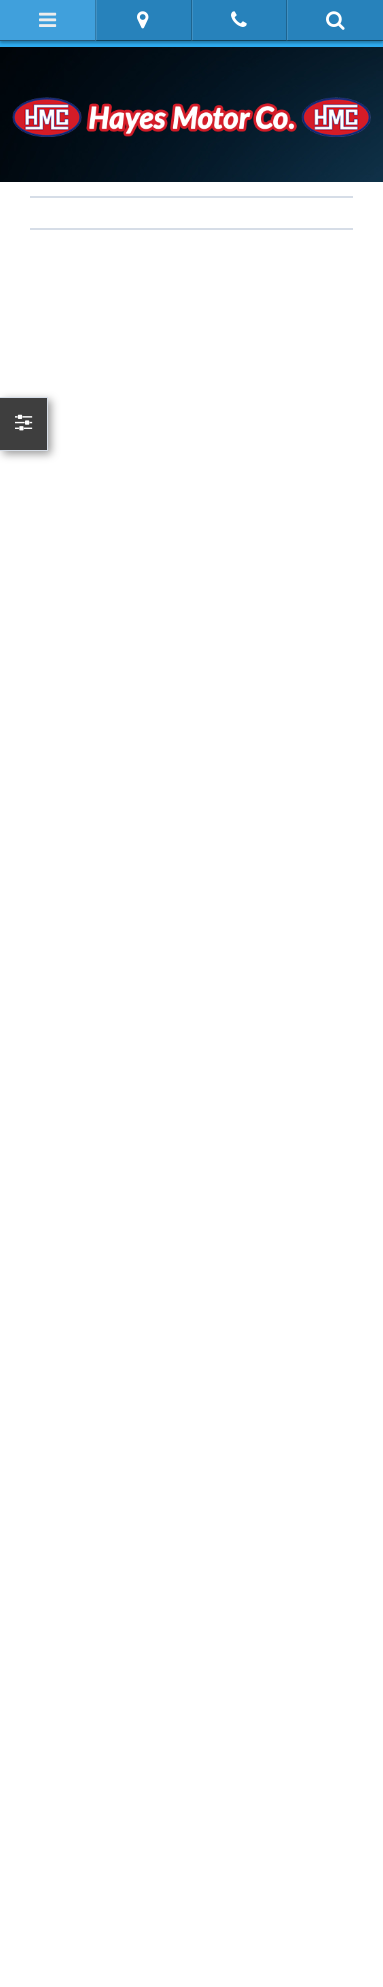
(async () => {
  const canvas = document.querySelector("canvas");
  canvas.width = 383;
  canvas.height = 1987;
  const ctx = canvas.getContext("2d");
  ctx.miterLimit = 4;
  ctx.fontKerning = "normal";
  async function loadImage(src) {
    const img = new Image();
    img.src = src;
    await img.decode();
    return img;
  }
  let path;

  ctx.fillStyle = "#ffffff";
  ctx.fillRect(0, 0, 383, 1987);
  ctx.drawImage(await loadImage("img/5.png"), 0, 47, 383, 135);
  ctx.fillStyle = "#2eacf0";
  ctx.fillRect(0, 40, 383, 7);
  ctx.fillStyle = "rgba(0, 0, 0, 0.3)";
  ctx.filter = "blur(1.5px)";
  ctx.beginPath();
  ctx.rect(0, 3, 383, 40);
  ctx.fill();
  ctx.filter = "none";
  for (const [x, y, w, h, color] of [
    [96, 0, 287, 40, "#2782bb"],
    [96, 0, 1, 41, "rgba(255, 255, 255, 0.12)"],
    [0, 0, 96, 41, "#40a0dc"],
  ]) {
    ctx.fillStyle = color;
    ctx.fillRect(x, y, w, h);
  }
  ctx.fillStyle = "#317ba9";
  path = new Path2D("M96 0V41L95 40V0Z");
  ctx.fill(path);
  ctx.fillStyle = "rgba(0, 0, 0, 0.45)";
  path = new Path2D("M96 41H0V40H95Z");
  ctx.fill(path);
  ctx.drawImage(await loadImage("img/1.png"), 39, 12, 18, 15);
  ctx.fillStyle = "rgba(255, 255, 255, 0.12)";
  ctx.fillRect(192, 0, 1, 41);
  ctx.fillStyle = "rgba(0, 0, 0, 0.23)";
  path = new Path2D("M192 0V41L191 40V0Z");
  ctx.fill(path);
  ctx.fillStyle = "rgba(0, 0, 0, 0.45)";
  path = new Path2D("M192 41H96V40H191Z");
  ctx.fill(path);
  ctx.drawImage(await loadImage("img/2.png"), 137, 11, 12, 18);
  ctx.fillStyle = "rgba(255, 255, 255, 0.12)";
  ctx.fillRect(287, 0, 1, 41);
  ctx.fillStyle = "rgba(0, 0, 0, 0.23)";
  path = new Path2D("M287 0V41L286 40V0Z");
  ctx.fill(path);
  ctx.fillStyle = "rgba(0, 0, 0, 0.45)";
  path = new Path2D("M287 41H192V40H286Z");
  ctx.fill(path);
  ctx.drawImage(await loadImage("img/3.png"), 231, 11, 16, 16);
  ctx.fillRect(287, 40, 96, 1);
  ctx.drawImage(await loadImage("img/4.png"), 326, 11, 19, 19);
  ctx.drawImage(await loadImage("img/6.png"), 12, 97, 359, 40);
  ctx.fillStyle = "#d6dde7";
  ctx.fillRect(30, 196, 323, 2);
  ctx.fillRect(30, 228, 323, 2);
  ctx.fillStyle = "rgba(0, 0, 0, 0.4)";
  ctx.filter = "blur(4px)";
  ctx.beginPath();
  ctx.rect(3, 400, 48, 54);
  ctx.fill();
  ctx.filter = "none";
  for (const [x, y, w, h, color] of [
    [0, 398, 47, 52, "#3e3e3e"],
    [0, 397, 48, 1, "#d6dde7"],
    [47, 397, 1, 54, "#d6dde7"],
    [0, 450, 48, 1, "#d6dde7"],
  ]) {
    ctx.fillStyle = color;
    ctx.fillRect(x, y, w, h);
  }
  ctx.drawImage(await loadImage("img/7.png"), 15, 414, 18, 17);
})();
